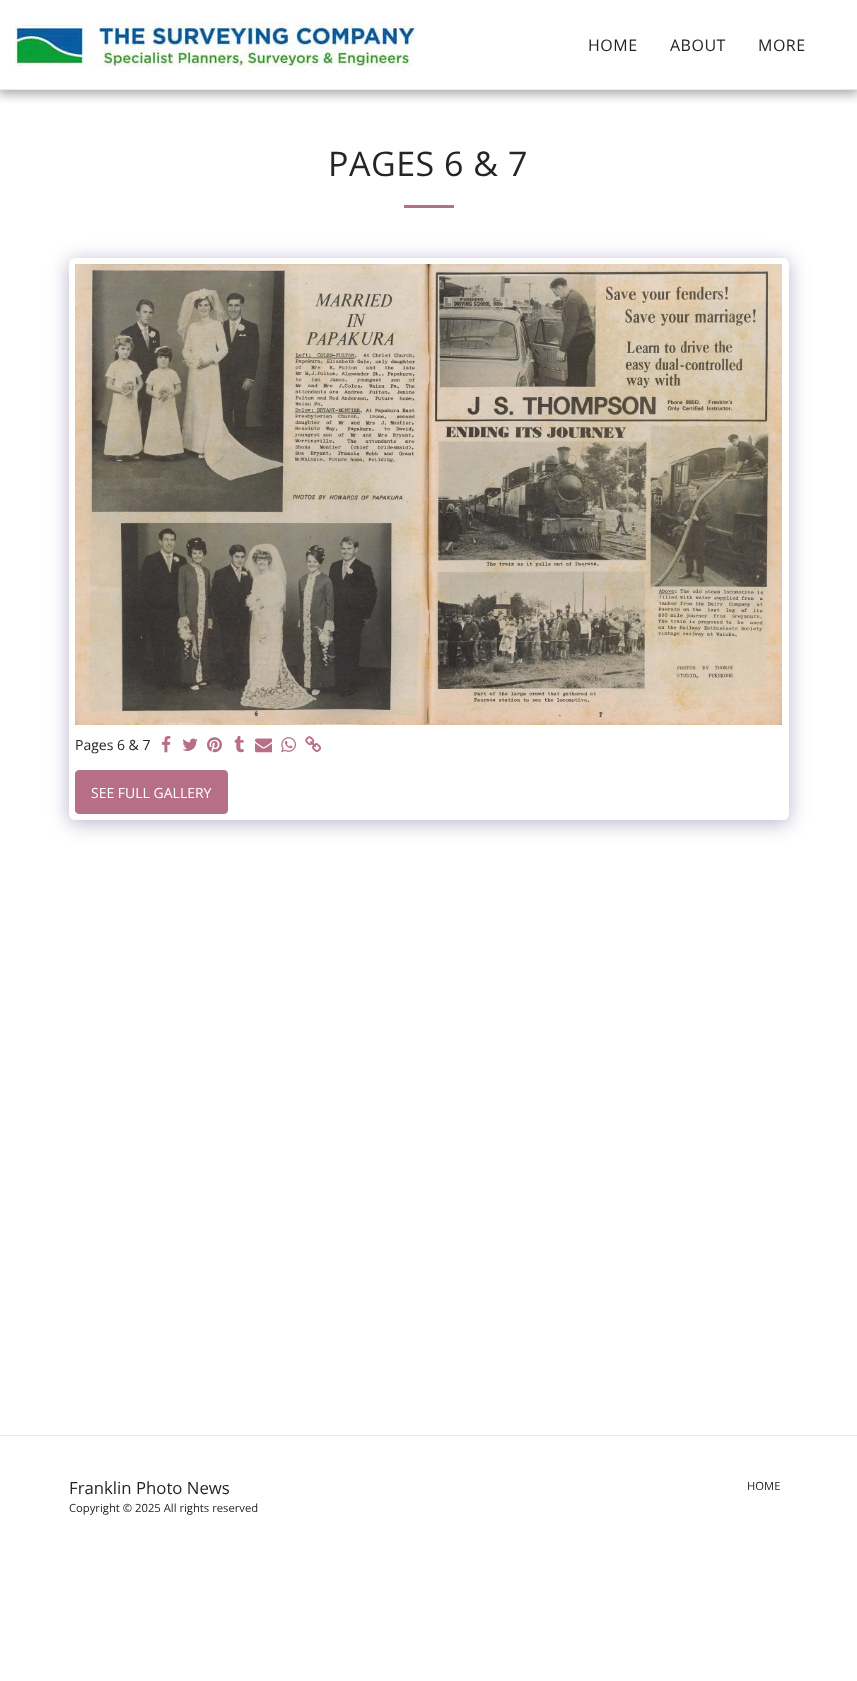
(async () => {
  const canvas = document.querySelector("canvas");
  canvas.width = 857;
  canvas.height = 1681;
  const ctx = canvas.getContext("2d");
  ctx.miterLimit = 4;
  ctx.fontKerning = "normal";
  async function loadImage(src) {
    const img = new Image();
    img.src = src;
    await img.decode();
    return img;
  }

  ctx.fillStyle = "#ffffff";
  ctx.fillRect(0, 0, 857, 1681);
  ctx.save();
  ctx.beginPath();
  ctx.rect(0, 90, 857, 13);
  ctx.clip();
  ctx.fillStyle = "rgba(0, 0, 0, 0.35)";
  ctx.filter = "blur(6px)";
  ctx.beginPath();
  ctx.rect(-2, 0, 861, 94);
  ctx.fill();
  ctx.filter = "none";
  ctx.restore();
  ctx.fillStyle = "#ebebeb";
  ctx.fillRect(0, 89, 857, 1);
  ctx.drawImage(await loadImage("img/1.png"), 15, 22, 400, 45);
  ctx.fillStyle = "#b66f86";
  ctx.fillRect(404, 205, 50, 3);
  ctx.fillStyle = "rgba(77, 63, 122, 0.4)";
  ctx.filter = "blur(10px)";
  ctx.beginPath();
  ctx.roundRect(69, 261, 720, 562, 6);
  ctx.fill();
  ctx.filter = "none";
  ctx.fillStyle = "#ffffff";
  ctx.beginPath();
  ctx.roundRect(69, 258, 720, 562, 6);
  ctx.fill();
  ctx.drawImage(await loadImage("img/2.png"), 75, 264, 707, 461);
  ctx.drawImage(await loadImage("img/3.png"), 161, 736, 10, 17);
  ctx.drawImage(await loadImage("img/4.png"), 182, 738, 16, 13);
  ctx.drawImage(await loadImage("img/5.png"), 207, 737, 15, 16);
  ctx.drawImage(await loadImage("img/6.png"), 234, 736, 10, 17);
  ctx.drawImage(await loadImage("img/7.png"), 255, 738, 17, 15);
  ctx.drawImage(await loadImage("img/8.png"), 281, 737, 15, 16);
  ctx.drawImage(await loadImage("img/9.png"), 305, 736, 16, 17);
  ctx.fillStyle = "#b66f86";
  ctx.beginPath();
  ctx.roundRect(75.5, 770.5, 152, 43, 3.5);
  ctx.fill();
  ctx.strokeStyle = "#b66f86";
  ctx.stroke();
  ctx.fillStyle = "#ebebeb";
  ctx.fillRect(0, 1435, 857, 1);
  ctx.letterSpacing = "0.5px";
  ctx.font = "16px Open Sans";
  ctx.fillStyle = "#252525";
  for (const [text, x, y] of [
    ["HOME", 588, 51],
    ["ABOUT", 670, 51],
    ["MORE", 758, 51],
  ]) {
    ctx.fillText(text, x, y);
  }
  ctx.font = "34px Open Sans";
  ctx.fillText("PAGES 6 & 7", 328, 176);
  ctx.letterSpacing = "0px";
  ctx.font = "14px Open Sans";
  ctx.fillText("Pages 6 & 7", 75, 750);
  ctx.fillStyle = "#ffffff";
  ctx.fillText("SEE FULL GALLERY", 91, 798);
  ctx.font = "16.75px Open Sans";
  ctx.fillStyle = "#252525";
  ctx.fillText("Franklin Photo News", 69, 1494);
  ctx.font = "11.25px Open Sans";
  ctx.fillText("Copyright © 2025 All rights reserved", 69, 1512);
  ctx.fillText("HOME", 747, 1490);
})();
